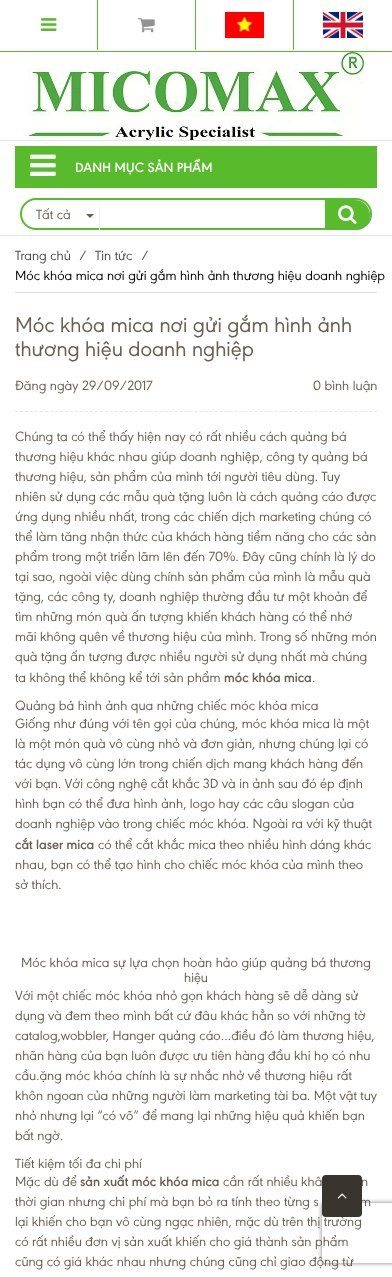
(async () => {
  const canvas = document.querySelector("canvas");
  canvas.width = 392;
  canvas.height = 1277;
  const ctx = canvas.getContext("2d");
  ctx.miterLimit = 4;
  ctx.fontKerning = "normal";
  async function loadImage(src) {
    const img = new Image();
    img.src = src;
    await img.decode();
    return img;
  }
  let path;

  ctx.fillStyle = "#ffffff";
  ctx.fillRect(0, 0, 392, 1277);
  ctx.fillStyle = "#58bb2c";
  ctx.fillRect(0, 51, 392, 1);
  ctx.fillRect(97, 0, 1, 50);
  ctx.drawImage(await loadImage("img/1.png"), 41, 18, 16, 13);
  ctx.fillRect(195, 0, 1, 50);
  ctx.drawImage(await loadImage("img/2.png"), 138, 18, 17, 15);
  ctx.fillRect(293, 0, 1, 50);
  ctx.drawImage(await loadImage("img/3.png"), 225, 12, 39, 26);
  ctx.drawImage(await loadImage("img/4.png"), 323, 12, 40, 26);
  ctx.drawImage(await loadImage("img/5.png"), 28, 52, 336, 88);
  for (const [x, y, w, h, color] of [
    [0, 140, 392, 1, "#e8e6e2"],
    [0, 235, 392, 1, "#e8e6e2"],
    [15, 146, 362, 42, "#58bb2c"],
  ]) {
    ctx.fillStyle = color;
    ctx.fillRect(x, y, w, h);
  }
  ctx.drawImage(await loadImage("img/6.png"), 30, 154, 26, 22);
  ctx.beginPath();
  ctx.roundRect(21, 199, 350, 30, 15);
  ctx.strokeStyle = "#58bb2c";
  ctx.lineWidth = 2;
  ctx.stroke();
  ctx.fillStyle = "#f6f6f6";
  ctx.fillRect(99, 200, 1, 30);
  ctx.fillStyle = "#685e52";
  path = new Path2D("M86 214H94L90 218Z");
  ctx.fill(path);
  ctx.fillStyle = "#58bb2c";
  ctx.beginPath();
  ctx.roundRect(325, 200, 45, 30, [0, 15, 15, 0]);
  ctx.fill();
  ctx.drawImage(await loadImage("img/7.png"), 338, 205, 19, 19);
  ctx.fillStyle = "#dddddd";
  ctx.fillRect(15, 292, 362, 1);
  path = new Path2D("M15 411.5H377");
  ctx.strokeStyle = "#e7e7e7";
  ctx.lineWidth = 1;
  ctx.setLineDash([3, 1.99]);
  ctx.stroke(path);
  ctx.save();
  path = new Path2D("M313 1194H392V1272H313ZM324 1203H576C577 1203 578 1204 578 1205V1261C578 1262 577 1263 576 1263H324C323 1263 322 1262 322 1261V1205C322 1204 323 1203 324 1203Z");
  ctx.clip(path, "evenodd");
  ctx.fillStyle = "#808080";
  ctx.filter = "blur(2.5px)";
  ctx.beginPath();
  ctx.roundRect(322, 1203, 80, 60, 2);
  ctx.fill();
  ctx.filter = "none";
  ctx.restore();
  ctx.font = "600 14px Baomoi";
  ctx.fillStyle = "#ffffff";
  ctx.fillText("DANH MỤC SẢN PHẨM", 75, 172);
  ctx.font = "14px Baomoi";
  ctx.fillStyle = "#685e52";
  ctx.fillText("Tất cả", 36, 219);
  ctx.fillStyle = "#4d4d4d";
  for (const [text, x, y] of [
    ["Trang chủ", 15, 260],
    ["/", 79, 260],
    ["Tin tức", 95, 260],
    ["/", 141, 260],
  ]) {
    ctx.fillText(text, x, y);
  }
  ctx.fillStyle = "#000000";
  ctx.fillText("Móc khóa mica nơi gửi gắm hình ảnh thương hiệu doanh nghiệp", 15, 280);
  ctx.font = "22px Baomoi";
  ctx.fillStyle = "#685e52";
  ctx.fillText("Móc khóa mica nơi gửi gắm hình ảnh", 15, 332);
  ctx.fillText("thương hiệu doanh nghiệp", 15, 356);
  ctx.font = "14px Baomoi";
  for (const [text, x, y] of [
    ["Đăng ngày 29/09/2017", 15, 390],
    ["0 bình luận", 313, 390],
    ["Chúng ta có thể thấy hiện nay có rất nhiều cách quảng bá", 15, 441],
    ["thương hiệu khác nhau giúp doanh nghiệp, công ty quảng bá", 15, 461],
    ["thương hiệu, sản phẩm của mình tới người tiêu dùng. Tuy", 15, 481],
    ["nhiên sử dụng các mẫu quà tặng luôn là cách quảng cáo được", 15, 501],
    ["ứng dụng nhiều nhất, trong các chiến dịch marketing chúng có", 15, 521],
    ["thể làm tăng nhận thức của khách hàng tiềm năng cho các sản", 15, 541],
    ["phẩm trong một triển lãm lên đến 70%. Đây cũng chính là lý do", 15, 561],
    ["tại sao, ngoài việc dùng chính sản phẩm của mình là mẫu quà", 15, 581],
    ["tặng, các công ty, doanh nghiệp thường đầu tư một khoản để", 15, 601],
    ["tìm những món quà ấn tượng khiến khách hàng có thể nhớ", 15, 621],
    ["mãi không quên về thương hiệu của mình. Trong số những món", 15, 641],
    ["quà tặng ấn tượng được nhiều người sử dụng nhất mà chúng", 15, 661],
    ["ta không thể không kể tới sản phẩm", 15, 682],
  ]) {
    ctx.fillText(text, x, y);
  }
  ctx.font = "600 14px Baomoi";
  ctx.fillText("móc khóa mica", 224, 682);
  ctx.font = "14px Baomoi";
  for (const [text, x, y] of [
    [".", 312, 682],
    ["Quảng bá hình ảnh qua những chiếc móc khóa mica", 15, 710],
    ["Giống như đúng với tên gọi của chúng, móc khóa mica là một", 15, 728],
    ["là một món quà vô cùng nhỏ và đơn giản, nhưng chúng lại có", 15, 748],
    ["tác dụng vô cùng lớn trong chiến dịch mang khách hàng đến", 15, 768],
    ["với bạn. Với công nghệ cắt khắc 3D và in ảnh sau đó ép định", 15, 788],
    ["hình bạn có thể đưa hình ảnh, logo hay các câu slogan của", 15, 808],
    ["doanh nghiệp vào trong chiếc móc khóa. Ngoài ra với kỹ thuật", 15, 828],
  ]) {
    ctx.fillText(text, x, y);
  }
  ctx.font = "600 14px Baomoi";
  ctx.fillText("cắt laser mica", 15, 849);
  ctx.font = "14px Baomoi";
  for (const [text, x, y] of [
    ["có thể cắt khắc mica theo nhiều hình dáng khác", 98, 849],
    ["nhau, bạn có thể tạo hình cho chiếc móc khóa của mình theo", 15, 869],
    ["sở thích.", 15, 889],
    ["Móc khóa mica sự lựa chọn hoàn hảo giúp quảng bá thương", 21, 967],
    ["hiệu", 184, 982],
    ["Với một chiếc móc khóa nhỏ gọn khách hàng sẽ dễ dàng sử", 15, 1000],
    ["dụng và đem theo mình bất cứ đâu khác hẳn so với những tờ", 15, 1020],
    ["catalog,wobbler, Hanger quảng cáo…điều đó làm thương hiệu,", 15, 1040],
    ["nhãn hàng của bạn luôn được ưu tiên hàng đầu khi họ có nhu", 15, 1060],
    ["cầu.ặng móc khóa chính là sự nhắc nhở về thương hiệu rất", 15, 1080],
    ["khôn ngoan của những người làm marketing tài ba. Một vật tuy", 15, 1100],
    ["nhỏ nhưng lại “có võ” để mang lại những hiệu quả khiến bạn", 15, 1120],
    ["bất ngờ.", 15, 1140],
    ["Tiết kiệm tối đa chi phí", 15, 1168],
    ["Mặc dù để", 15, 1186],
  ]) {
    ctx.fillText(text, x, y);
  }
  ctx.font = "600 14px Baomoi";
  ctx.fillText("sản xuất móc khóa mica", 80, 1186);
  ctx.font = "14px Baomoi";
  for (const [text, x, y] of [
    ["cần rất nhiều khâ", 223, 1186],
    ["n", 361, 1186],
    ["thời gian nhưng chi phí mà bạn bỏ ra tính theo từng s", 15, 1206],
    ["m", 360, 1206],
    ["lại khiến cho bạn vô cùng ngạc nhiên, mặc dù trên thị trường", 15, 1226],
    ["có rất nhiều đơn vị sản xuất khiến cho giá thành sản phẩm", 15, 1246],
    ["cũng có giá khác nhau nhưng chúng cũng chỉ giao động từ", 15, 1266],
  ]) {
    ctx.fillText(text, x, y);
  }
  ctx.fillStyle = "#39342e";
  ctx.beginPath();
  ctx.roundRect(322, 1175, 40, 42, 4);
  ctx.fill();
  ctx.drawImage(await loadImage("img/8.png"), 337, 1193, 10, 6);
})();
